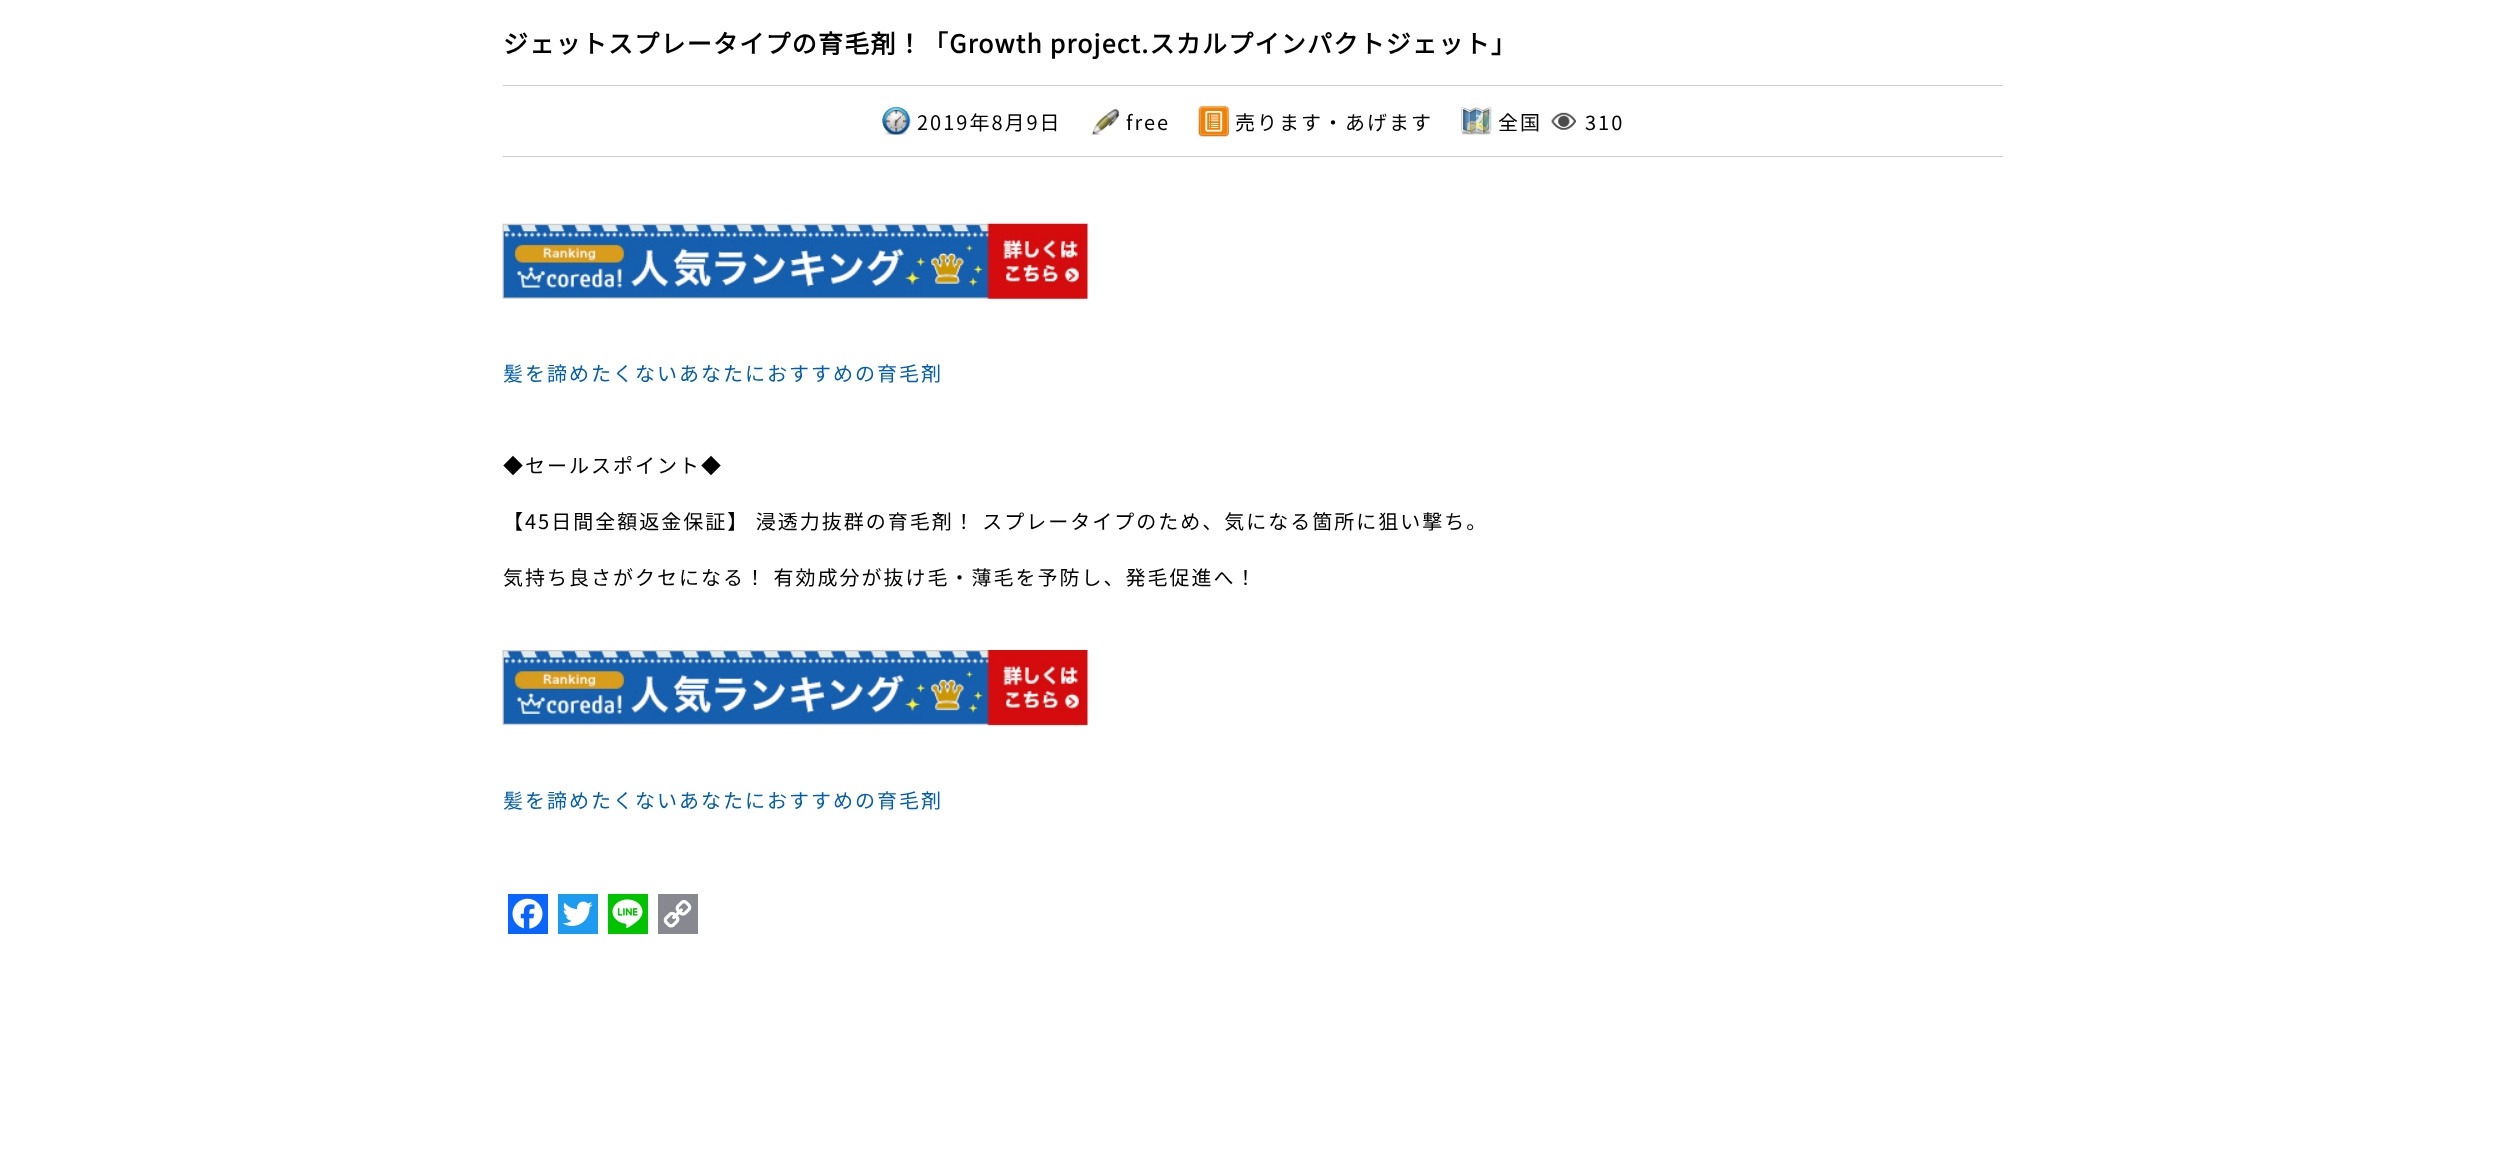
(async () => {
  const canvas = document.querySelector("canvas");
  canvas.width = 2504;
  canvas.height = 1149;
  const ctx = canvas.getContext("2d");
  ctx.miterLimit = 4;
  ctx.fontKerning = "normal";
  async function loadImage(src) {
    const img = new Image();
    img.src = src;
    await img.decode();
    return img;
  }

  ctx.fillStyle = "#ffffff";
  ctx.fillRect(0, 0, 2504, 1149);
  ctx.fillStyle = "#cccccc";
  ctx.fillRect(503, 85, 1500, 1);
  ctx.fillRect(503, 156, 1500, 1);
  ctx.drawImage(await loadImage("img/1.png"), 882, 107, 29, 28);
  ctx.drawImage(await loadImage("img/2.png"), 1090, 109, 30, 26);
  ctx.drawImage(await loadImage("img/3.png"), 1198, 106, 31, 31);
  ctx.drawImage(await loadImage("img/4.png"), 1461, 107, 31, 28);
  ctx.drawImage(await loadImage("img/5.png"), 1551, 112, 25, 18);
  ctx.drawImage(await loadImage("img/6.png"), 502, 223, 586, 76);
  ctx.drawImage(await loadImage("img/7.png"), 502, 650, 586, 76);
  ctx.fillStyle = "#0866ff";
  ctx.fillRect(508, 894, 40, 40);
  ctx.drawImage(await loadImage("img/8.png"), 512, 898, 31, 31);
  ctx.fillStyle = "#1d9bf0";
  ctx.fillRect(558, 894, 40, 40);
  ctx.drawImage(await loadImage("img/9.png"), 562, 901, 31, 25);
  ctx.fillStyle = "#00c300";
  ctx.fillRect(608, 894, 40, 40);
  ctx.drawImage(await loadImage("img/10.png"), 612, 899, 31, 29);
  ctx.fillStyle = "#888990";
  ctx.fillRect(658, 894, 40, 40);
  ctx.drawImage(await loadImage("img/11.png"), 663, 900, 29, 28);
  ctx.letterSpacing = "1.25px";
  ctx.font = "bold 25px Noto Sans JP";
  ctx.fillStyle = "#000000";
  ctx.fillText("ジェットスプレータイプの育毛剤！「Growth project.スカルプインパクトジェット」", 503, 53);
  ctx.letterSpacing = "2px";
  ctx.font = "100 20px Noto Sans JP";
  for (const [text, x, y] of [
    ["2019年8月9日", 917, 130],
    ["free", 1126, 130],
    ["売ります・あげます", 1235, 130],
    ["全国", 1498, 130],
    ["310", 1585, 130],
  ]) {
    ctx.fillText(text, x, y);
  }
  ctx.fillStyle = "#005eac";
  ctx.fillText("髪を諦めたくないあなたにおすすめの育毛剤", 503, 381);
  ctx.fillStyle = "#000000";
  for (const [text, x, y] of [
    ["◆セールスポイント◆", 503, 473],
    ["【45日間全額返金保証】 浸透力抜群の育毛剤！ スプレータイプのため、気になる箇所に狙い撃ち。", 503, 529],
    ["気持ち良さがクセになる！ 有効成分が抜け毛・薄毛を予防し、発毛促進へ！", 503, 585],
  ]) {
    ctx.fillText(text, x, y);
  }
  ctx.fillStyle = "#005eac";
  ctx.fillText("髪を諦めたくないあなたにおすすめの育毛剤", 503, 808);
})();
